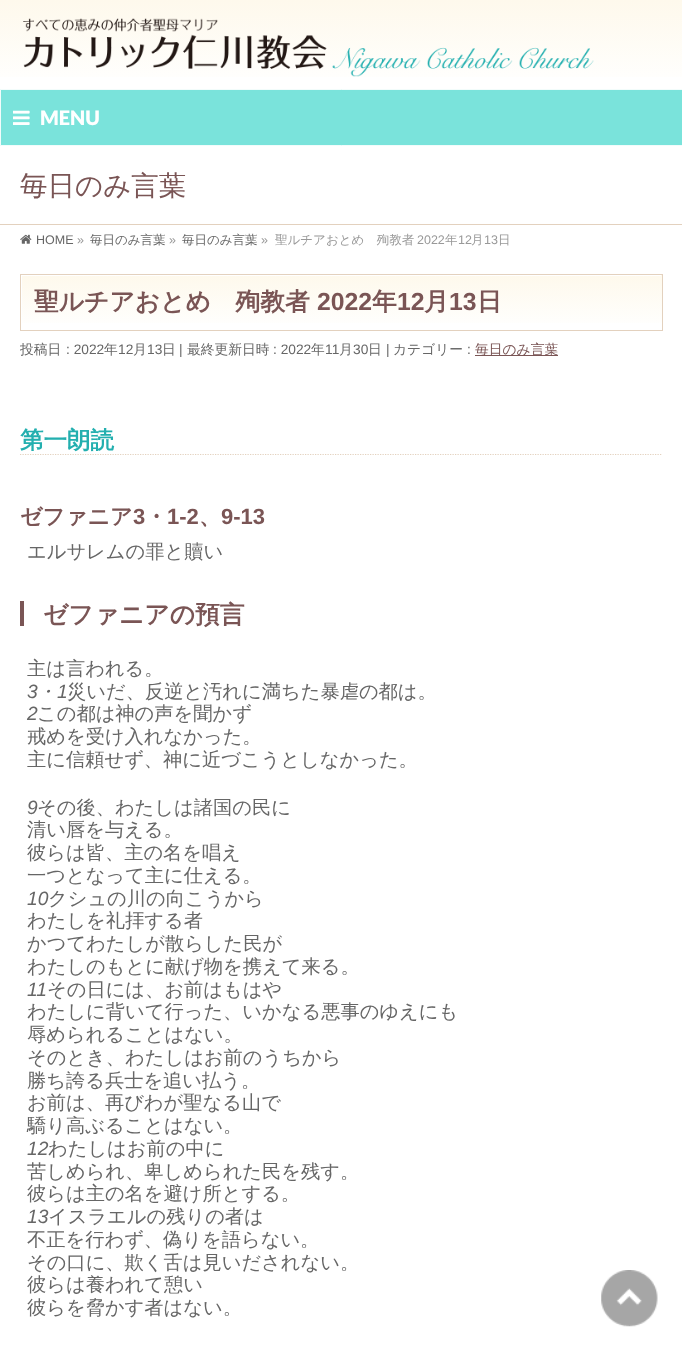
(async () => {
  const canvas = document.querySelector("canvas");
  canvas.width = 682;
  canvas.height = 1351;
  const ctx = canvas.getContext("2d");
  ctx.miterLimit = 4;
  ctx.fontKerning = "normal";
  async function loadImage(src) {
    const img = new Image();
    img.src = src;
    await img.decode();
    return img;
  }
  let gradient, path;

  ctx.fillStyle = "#ffffff";
  ctx.fillRect(0, 0, 682, 1351);
  gradient = ctx.createLinearGradient(341, 0, 341, 89);
  gradient.addColorStop(0, "#fef9ec");
  gradient.addColorStop(1, "#ffffff");
  ctx.fillStyle = gradient;
  ctx.fillRect(0, 0, 682, 77);
  ctx.drawImage(await loadImage("img/1.png"), 23, 18, 571, 59);
  ctx.fillStyle = "#7ae3db";
  ctx.beginPath();
  ctx.rect(0.5, 89.5, 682, 56);
  ctx.fill();
  ctx.strokeStyle = "#f2fcfb";
  ctx.stroke();
  ctx.drawImage(await loadImage("img/2.png"), 13, 110, 17, 15);
  ctx.fillStyle = "#e3d1be";
  ctx.fillRect(0, 224, 682, 1);
  ctx.drawImage(await loadImage("img/3.png"), 20, 234, 12, 10);
  gradient = ctx.createLinearGradient(341, 275, 341, 330);
  gradient.addColorStop(0, "#fef9ec");
  gradient.addColorStop(1, "#ffffff");
  ctx.fillStyle = gradient;
  ctx.fillRect(22, 275, 640, 48);
  ctx.save();
  ctx.beginPath();
  ctx.rect(21, 275, 640, 55);
  ctx.clip();
  ctx.fillStyle = "#ffffff";
  path = new Path2D("M-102 151H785V454H-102ZM22 276H662V331H22Z");
  ctx.fill(path, "evenodd");
  ctx.restore();
  ctx.strokeStyle = "#e3d1be";
  ctx.strokeRect(20.5, 274.5, 642, 56);
  ctx.fillStyle = "#7a5555";
  ctx.fillRect(475, 355, 83, 1);
  path = new Path2D("M20 454.5H662.5");
  ctx.lineWidth = 1.2;
  ctx.setLineDash([1.25, 1.25]);
  ctx.stroke(path);
  ctx.fillRect(20, 601, 4, 25);
  ctx.drawImage(await loadImage("img/4.png"), 601, 1270, 57, 57);
  ctx.font = "900 20px Lato";
  ctx.fillStyle = "#ffffff";
  ctx.fillText("MENU", 40, 125);
  ctx.font = "500 27.5px WenQuanYi Zen Hei";
  ctx.fillStyle = "#7a5555";
  ctx.fillText("毎日のみ言葉", 20, 195);
  ctx.font = "12.5px Liberation Sans";
  ctx.fillStyle = "#666666";
  ctx.fillText("HOME", 36, 244);
  ctx.fillStyle = "#999999";
  ctx.fillText("»", 77, 244);
  ctx.font = "500 12.5px WenQuanYi Zen Hei";
  ctx.fillStyle = "#666666";
  ctx.fillText("毎日のみ言葉", 90, 244);
  ctx.font = "12.5px Liberation Sans";
  ctx.fillStyle = "#999999";
  ctx.fillText("»", 169, 244);
  ctx.font = "500 12.5px WenQuanYi Zen Hei";
  ctx.fillStyle = "#666666";
  ctx.fillText("毎日のみ言葉", 182, 244);
  ctx.font = "12.5px Liberation Sans";
  ctx.fillStyle = "#999999";
  ctx.fillText("»", 261, 244);
  ctx.font = "500 12.5px WenQuanYi Zen Hei";
  ctx.fillText("聖ルチアおとめ　殉教者", 275, 244);
  ctx.font = "12.5px Liberation Sans";
  ctx.fillText("2022", 417, 244);
  ctx.font = "500 12.5px WenQuanYi Zen Hei";
  ctx.fillText("年", 445, 244);
  ctx.font = "12.5px Liberation Sans";
  ctx.fillText("12", 458, 244);
  ctx.font = "500 12.5px WenQuanYi Zen Hei";
  ctx.fillText("月", 471, 244);
  ctx.font = "12.5px Liberation Sans";
  ctx.fillText("13", 484, 244);
  ctx.font = "500 12.5px WenQuanYi Zen Hei";
  ctx.fillText("日", 498, 244);
  ctx.font = "bold 24.75px WenQuanYi Zen Hei";
  ctx.fillStyle = "#7a5555";
  ctx.fillText("聖ルチアおとめ　殉教者", 34, 310);
  ctx.font = "bold 24.75px Liberation Sans";
  ctx.fillText("2022", 317, 310);
  ctx.font = "bold 24.75px WenQuanYi Zen Hei";
  ctx.fillText("年", 372, 310);
  ctx.font = "bold 24.75px Liberation Sans";
  ctx.fillText("12", 397, 310);
  ctx.font = "bold 24.75px WenQuanYi Zen Hei";
  ctx.fillText("月", 424, 310);
  ctx.font = "bold 24.75px Liberation Sans";
  ctx.fillText("13", 449, 310);
  ctx.font = "bold 24.75px WenQuanYi Zen Hei";
  ctx.fillText("日", 477, 310);
  ctx.font = "500 13.75px WenQuanYi Zen Hei";
  ctx.fillStyle = "#666666";
  ctx.fillText("投稿日", 20, 354);
  ctx.font = "13.75px Liberation Sans";
  ctx.fillText(": 2022", 66, 354);
  ctx.font = "500 13.75px WenQuanYi Zen Hei";
  ctx.fillText("年", 104, 354);
  ctx.font = "13.75px Liberation Sans";
  ctx.fillText("12", 118, 354);
  ctx.font = "500 13.75px WenQuanYi Zen Hei";
  ctx.fillText("月", 133, 354);
  ctx.font = "13.75px Liberation Sans";
  ctx.fillText("13", 147, 354);
  ctx.font = "500 13.75px WenQuanYi Zen Hei";
  ctx.fillText("日", 162, 354);
  ctx.font = "13.75px Liberation Sans";
  ctx.fillText("|", 179, 354);
  ctx.font = "500 13.75px WenQuanYi Zen Hei";
  ctx.fillText("最終更新日時", 187, 354);
  ctx.font = "13.75px Liberation Sans";
  ctx.fillText(": 2022", 273, 354);
  ctx.font = "500 13.75px WenQuanYi Zen Hei";
  ctx.fillText("年", 311, 354);
  ctx.font = "13.75px Liberation Sans";
  ctx.fillText("11", 325, 354);
  ctx.font = "500 13.75px WenQuanYi Zen Hei";
  ctx.fillText("月", 339, 354);
  ctx.font = "13.75px Liberation Sans";
  ctx.fillText("30", 353, 354);
  ctx.font = "500 13.75px WenQuanYi Zen Hei";
  ctx.fillText("日", 368, 354);
  ctx.font = "13.75px Liberation Sans";
  ctx.fillText("|", 386, 354);
  ctx.font = "500 13.75px WenQuanYi Zen Hei";
  ctx.fillText("カテゴリー", 393, 354);
  ctx.font = "13.75px Liberation Sans";
  ctx.fillText(":", 467, 354);
  ctx.font = "500 13.75px WenQuanYi Zen Hei";
  ctx.fillStyle = "#7a5555";
  ctx.fillText("毎日のみ言葉", 475, 354);
  ctx.font = "bold 23.5px WenQuanYi Zen Hei";
  ctx.fillStyle = "#23afaf";
  ctx.fillText("第一朗読", 20, 448);
  ctx.font = "bold 22px WenQuanYi Zen Hei";
  ctx.fillStyle = "#7a5555";
  ctx.fillText("ゼファニア", 20, 524);
  ctx.font = "bold 22px Liberation Sans";
  ctx.fillText("3", 133, 524);
  ctx.font = "bold 22px WenQuanYi Zen Hei";
  ctx.fillText("・", 145, 524);
  ctx.font = "bold 22px Liberation Sans";
  ctx.fillText("1-2", 167, 524);
  ctx.fillText("9-13", 221, 524);
  ctx.font = "bold 22px WenQuanYi Zen Hei";
  ctx.fillText("、", 199, 524);
  ctx.font = "500 19.25px WenQuanYi Zen Hei";
  ctx.fillStyle = "#666666";
  ctx.fillText("エルサレムの罪と贖い", 27, 558);
  ctx.font = "bold 24.75px WenQuanYi Zen Hei";
  ctx.fillStyle = "#7a5555";
  ctx.fillText("ゼファニアの預言", 43, 623);
  ctx.font = "500 19.25px WenQuanYi Zen Hei";
  ctx.fillStyle = "#666666";
  ctx.fillText("主は言われる。", 27, 675);
  ctx.font = "italic 19.25px Liberation Sans";
  ctx.fillText("3", 27, 698);
  ctx.font = "italic 500 19.25px WenQuanYi Zen Hei";
  ctx.fillText("・", 37, 698);
  ctx.font = "italic 19.25px Liberation Sans";
  ctx.fillText("1", 57, 698);
  ctx.font = "500 19.25px WenQuanYi Zen Hei";
  ctx.fillText("災いだ、反逆と汚れに満ちた暴虐の都は。", 67, 698);
  ctx.font = "italic 19.25px Liberation Sans";
  ctx.fillText("2", 27, 720);
  ctx.font = "500 19.25px WenQuanYi Zen Hei";
  for (const [text, x, y] of [
    ["この都は神の声を聞かず", 37, 720],
    ["戒めを受け入れなかった。", 27, 743],
    ["主に信頼せず、神に近づこうとしなかった。", 27, 766],
  ]) {
    ctx.fillText(text, x, y);
  }
  ctx.font = "italic 19.25px Liberation Sans";
  ctx.fillText("9", 27, 814);
  ctx.font = "500 19.25px WenQuanYi Zen Hei";
  for (const [text, x, y] of [
    ["その後、わたしは諸国の民に", 37, 814],
    ["清い唇を与える。", 27, 836],
    ["彼らは皆、主の名を唱え", 27, 859],
    ["一つとなって主に仕える。", 27, 882],
  ]) {
    ctx.fillText(text, x, y);
  }
  ctx.font = "italic 19.25px Liberation Sans";
  ctx.fillText("10", 27, 905);
  ctx.font = "500 19.25px WenQuanYi Zen Hei";
  for (const [text, x, y] of [
    ["クシュの川の向こうから", 48, 905],
    ["わたしを礼拝する者", 27, 927],
    ["かつてわたしが散らした民が", 27, 950],
    ["わたしのもとに献げ物を携えて来る。", 27, 973],
  ]) {
    ctx.fillText(text, x, y);
  }
  ctx.font = "italic 19.25px Liberation Sans";
  ctx.fillText("11", 27, 996);
  ctx.font = "500 19.25px WenQuanYi Zen Hei";
  for (const [text, x, y] of [
    ["その日には、お前はもはや", 47, 996],
    ["わたしに背いて行った、いかなる悪事のゆえにも", 27, 1018],
    ["辱められることはない。", 27, 1041],
    ["そのとき、わたしはお前のうちから", 27, 1064],
    ["勝ち誇る兵士を追い払う。", 27, 1087],
    ["お前は、再びわが聖なる山で", 27, 1109],
    ["驕り高ぶることはない。", 27, 1132],
  ]) {
    ctx.fillText(text, x, y);
  }
  ctx.font = "italic 19.25px Liberation Sans";
  ctx.fillText("12", 27, 1155);
  ctx.font = "500 19.25px WenQuanYi Zen Hei";
  for (const [text, x, y] of [
    ["わたしはお前の中に", 48, 1155],
    ["苦しめられ、卑しめられた民を残す。", 27, 1178],
    ["彼らは主の名を避け所とする。", 27, 1200],
  ]) {
    ctx.fillText(text, x, y);
  }
  ctx.font = "italic 19.25px Liberation Sans";
  ctx.fillText("13", 27, 1223);
  ctx.font = "500 19.25px WenQuanYi Zen Hei";
  for (const [text, x, y] of [
    ["イスラエルの残りの者は", 48, 1223],
    ["不正を行わず、偽りを語らない。", 27, 1246],
    ["その口に、欺く舌は見いだされない。", 27, 1269],
    ["彼らは養われて憩い", 27, 1291],
    ["彼らを脅かす者はない。", 27, 1314],
  ]) {
    ctx.fillText(text, x, y);
  }
})();
